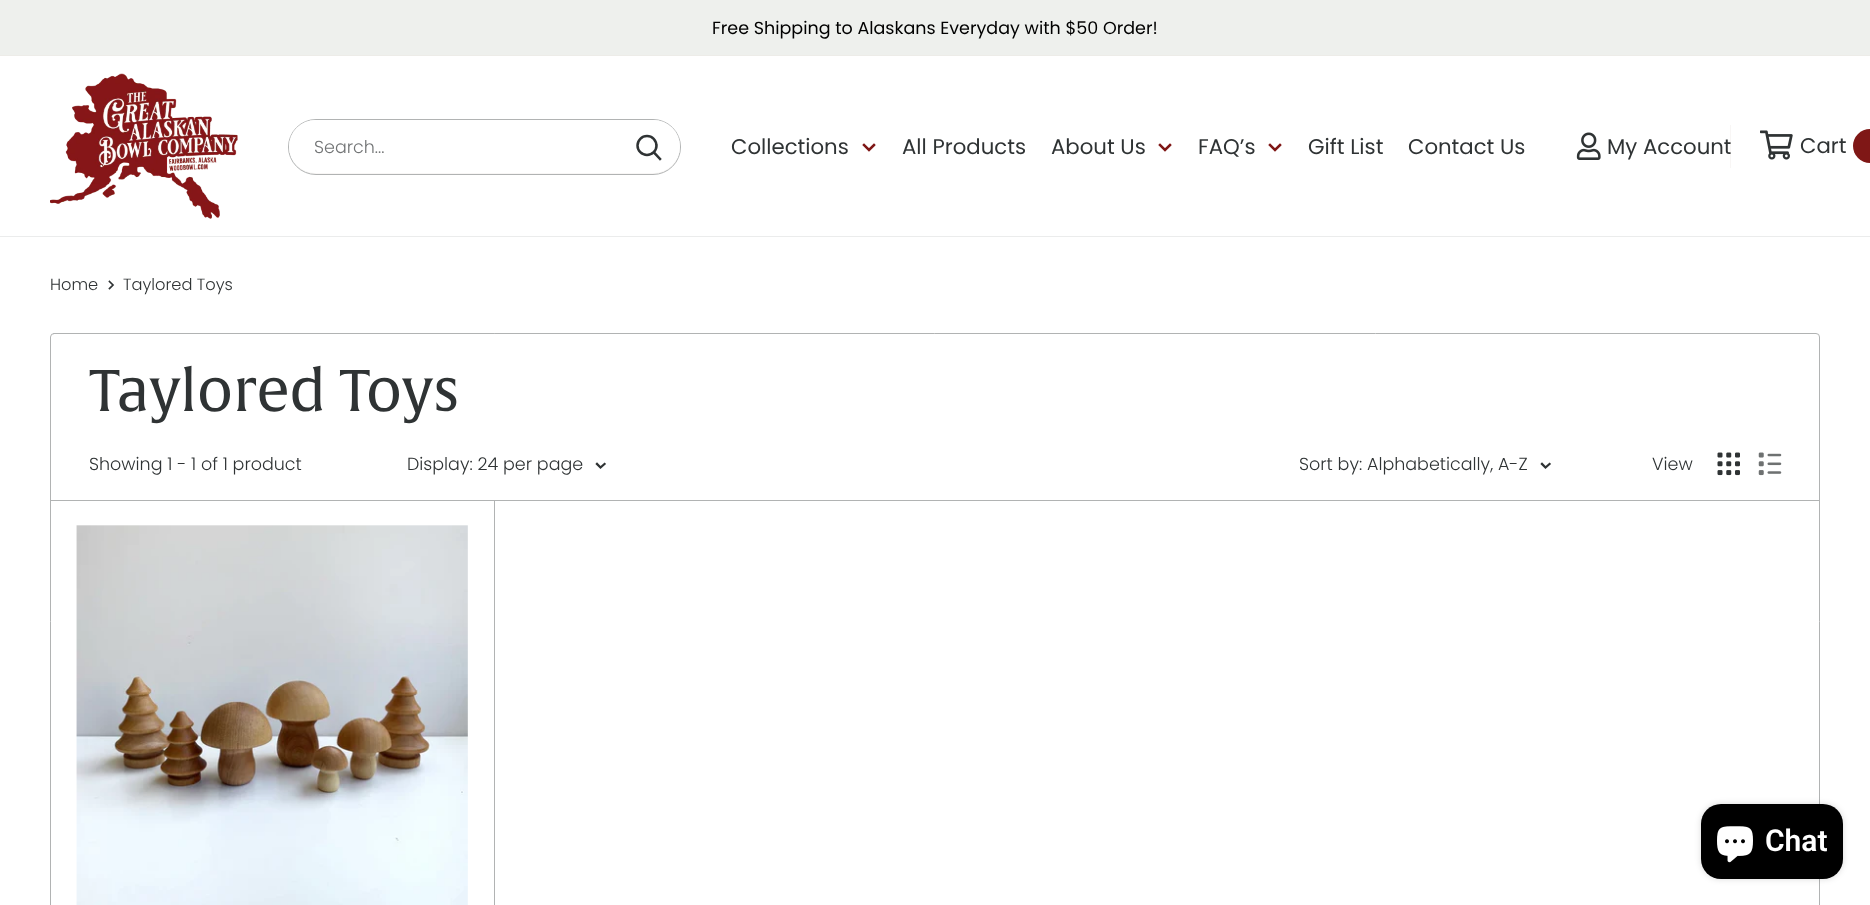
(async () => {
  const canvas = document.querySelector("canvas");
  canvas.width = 1870;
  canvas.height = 905;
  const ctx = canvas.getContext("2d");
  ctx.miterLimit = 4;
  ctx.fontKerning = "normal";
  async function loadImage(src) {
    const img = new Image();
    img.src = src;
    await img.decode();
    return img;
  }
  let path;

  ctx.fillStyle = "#ffffff";
  ctx.fillRect(0, 0, 1870, 905);
  for (const [x, y, w, h, color] of [
    [0, 0, 1870, 55, "#eef0ed"],
    [0, 55, 1870, 1, "#edece8"],
    [0, 236, 1870, 1, "#ebecec"],
  ]) {
    ctx.fillStyle = color;
    ctx.fillRect(x, y, w, h);
  }
  ctx.drawImage(await loadImage("img/1.png"), 50, 73, 188, 146);
  ctx.fillStyle = "#f8f6f5";
  path = new Path2D("M293 160C297 169 306 174 316 174H653C668 174 680 162 680 147C680 140 677 133 672 128C676 133 679 139 679 146C679 160 667 172 652 172H314C305 172 297 167 293 160Z");
  ctx.fill(path);
  ctx.beginPath();
  ctx.roundRect(288.5, 119.5, 392, 55, 27.5);
  ctx.strokeStyle = "#b1b3b3";
  ctx.stroke();
  ctx.fillStyle = "#ffffff";
  ctx.beginPath();
  ctx.roundRect(289, 120, 391, 53, 26.5);
  ctx.fill();
  path = new Path2D("M660 159L654 152.5");
  ctx.strokeStyle = "#2f3334";
  ctx.lineWidth = 2.5;
  ctx.lineCap = "square";
  ctx.stroke(path);
  ctx.beginPath();
  ctx.arc(647, 145.5, 9.5, 0, Math.PI * 2);
  ctx.stroke();
  path = new Path2D("M874 145L869 150L864 145");
  ctx.strokeStyle = "#7f1716";
  ctx.stroke(path);
  path = new Path2D("M1170 145L1165 150L1160 145");
  ctx.stroke(path);
  path = new Path2D("M1280 145L1275 150L1270 145");
  ctx.stroke(path);
  ctx.drawImage(await loadImage("img/2.png"), 1576, 132, 25, 28);
  ctx.drawImage(await loadImage("img/3.png"), 1760, 130, 33, 30);
  ctx.fillStyle = "#7f1716";
  ctx.beginPath();
  ctx.arc(1870, 146, 17, 0, Math.PI * 2);
  ctx.fill();
  path = new Path2D("M109.5 281.5L113 285L109.5 288.5");
  ctx.strokeStyle = "#2f3334";
  ctx.lineWidth = 1.7;
  ctx.stroke(path);
  ctx.beginPath();
  ctx.roundRect(50.5, 333.5, 1769, 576, 3.5);
  ctx.strokeStyle = "#b1b3b3";
  ctx.lineWidth = 1;
  ctx.stroke();
  ctx.fillStyle = "#b1b3b3";
  path = new Path2D("M54 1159H495V500H494V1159Z");
  ctx.fill(path);
  path = new Path2D("M51 429V501H1819V429V500H51Z");
  ctx.fill(path);
  path = new Path2D("M604.5 464L600.5 467.5L597 464");
  ctx.strokeStyle = "#2f3334";
  ctx.lineWidth = 2.3;
  ctx.stroke(path);
  path = new Path2D("M1549.5 464L1545.5 467.5L1542 464");
  ctx.stroke(path);
  ctx.drawImage(await loadImage("img/4.png"), 1717, 452, 23, 24);
  ctx.drawImage(await loadImage("img/5.png"), 1758, 452, 24, 24);
  ctx.drawImage(await loadImage("img/6.png"), 76, 525, 392, 380);
  ctx.fillStyle = "rgba(0, 0, 0, 0.15)";
  ctx.filter = "blur(3px)";
  ctx.beginPath();
  ctx.roundRect(1701, 804, 142, 75, 20);
  ctx.fill();
  ctx.filter = "none";
  ctx.fillStyle = "#000000";
  ctx.beginPath();
  ctx.roundRect(1701, 804, 142, 75, 20);
  ctx.fill();
  ctx.drawImage(await loadImage("img/7.png"), 1717, 826, 36, 37);
  ctx.font = "17.5px Poppins";
  ctx.fillText("Free Shipping to Alaskans Everyday with $50 Order!", 712, 34);
  ctx.font = "300 17.5px Poppins";
  ctx.fillStyle = "#727475";
  ctx.fillText("Search...", 314, 153);
  ctx.font = "21.25px Poppins";
  ctx.fillStyle = "#2f3334";
  for (const [text, x, y] of [
    ["Collections", 731, 154],
    ["All Products", 902, 154],
    ["About Us", 1051, 154],
    ["FAQ’s", 1198, 154],
    ["Gift List", 1308, 154],
    ["Contact Us", 1408, 154],
    ["My Account", 1607, 154],
  ]) {
    ctx.fillText(text, x, y);
  }
  ctx.fillStyle = "rgba(233, 226, 221, 0.3)";
  ctx.fillRect(1730, 125, 1, 43);
  ctx.fillStyle = "#2f3334";
  ctx.fillText("Cart", 1800, 153);
  ctx.font = "300 16.25px Poppins";
  ctx.fillText("Home", 50, 290);
  ctx.fillText("Taylored Toys", 123, 290);
  ctx.font = "57.5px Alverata";
  ctx.fillText("Taylored Toys", 89, 411);
  ctx.font = "300 17.5px Poppins";
  for (const [text, x, y] of [
    ["Showing 1 - 1 of 1 product", 89, 470],
    ["Display: 24 per page", 407, 470],
    ["Sort by: Alphabetically, A-Z", 1299, 470],
    ["View", 1652, 470],
  ]) {
    ctx.fillText(text, x, y);
  }
  ctx.font = "600 30px Roboto";
  ctx.fillStyle = "#ffffff";
  ctx.fillText("Chat", 1765, 851);
})();
